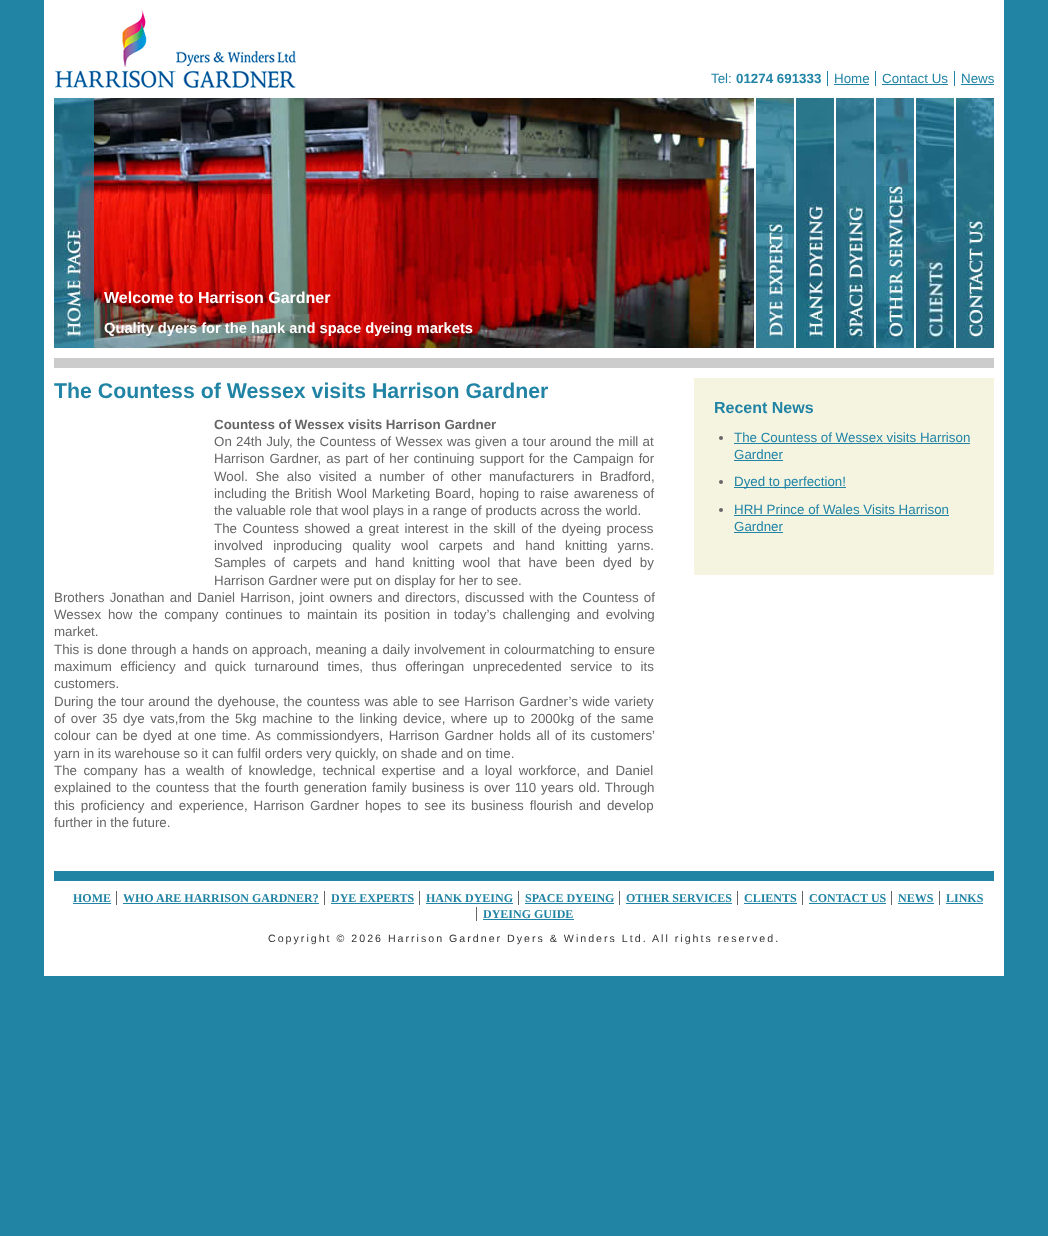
(async () => {
  const canvas = document.querySelector("canvas");
  canvas.width = 1048;
  canvas.height = 1236;
  const ctx = canvas.getContext("2d");
  ctx.miterLimit = 4;
  ctx.fontKerning = "normal";
  async function loadImage(src) {
    const img = new Image();
    img.src = src;
    await img.decode();
    return img;
  }

  ctx.fillStyle = "#2184a5";
  ctx.fillRect(0, 0, 1048, 1236);
  ctx.fillStyle = "#ffffff";
  ctx.fillRect(44, 0, 960, 976);
  ctx.fillStyle = "#cccccc";
  ctx.fillRect(54, 358, 940, 10);
  ctx.drawImage(await loadImage("img/1.png"), 55, 10, 242, 78);
  for (const [x, y, w, h, color] of [
    [827, 71, 1, 15, "#2184a5"],
    [834, 84, 35, 1, "#2184a5"],
    [875, 71, 1, 15, "#2184a5"],
    [882, 84, 66, 1, "#2184a5"],
    [954, 71, 1, 15, "#2184a5"],
    [961, 84, 33, 1, "#2184a5"],
  ]) {
    ctx.fillStyle = color;
    ctx.fillRect(x, y, w, h);
  }
  ctx.drawImage(await loadImage("img/2.png"), 54, 98, 700, 250);
  ctx.drawImage(await loadImage("img/3.png"), 756, 98, 38, 250);
  ctx.drawImage(await loadImage("img/4.png"), 796, 98, 38, 250);
  ctx.drawImage(await loadImage("img/5.png"), 836, 98, 38, 250);
  ctx.drawImage(await loadImage("img/6.png"), 876, 98, 38, 250);
  ctx.drawImage(await loadImage("img/7.png"), 916, 98, 38, 250);
  ctx.drawImage(await loadImage("img/8.png"), 956, 98, 38, 250);
  ctx.fillStyle = "#f5f4e1";
  ctx.fillRect(694, 378, 300, 197);
  ctx.fillStyle = "#666666";
  ctx.beginPath();
  ctx.arc(721, 438, 2, 0, Math.PI * 2);
  ctx.fill();
  ctx.fillStyle = "#2184a5";
  ctx.fillRect(734, 443, 236, 1);
  ctx.fillRect(734, 460, 49, 1);
  ctx.fillStyle = "#666666";
  ctx.beginPath();
  ctx.arc(721, 482, 2, 0, Math.PI * 2);
  ctx.fill();
  ctx.fillStyle = "#2184a5";
  ctx.fillRect(734, 487, 112, 1);
  ctx.fillStyle = "#666666";
  ctx.beginPath();
  ctx.arc(721, 510, 2, 0, Math.PI * 2);
  ctx.fill();
  for (const [x, y, w, h, color] of [
    [734, 515, 215, 1, "#2184a5"],
    [734, 532, 49, 1, "#2184a5"],
    [54, 871, 940, 10, "#2184a5"],
    [73, 903, 38, 1, "#2184a5"],
    [116, 891, 1, 14, "#666666"],
    [123, 903, 196, 1, "#2184a5"],
    [324, 891, 1, 14, "#666666"],
    [331, 903, 83, 1, "#2184a5"],
    [419, 891, 1, 14, "#666666"],
    [426, 903, 87, 1, "#2184a5"],
    [518, 891, 1, 14, "#666666"],
    [525, 903, 89, 1, "#2184a5"],
    [619, 891, 1, 14, "#666666"],
    [626, 903, 106, 1, "#2184a5"],
    [737, 891, 1, 14, "#666666"],
    [744, 903, 53, 1, "#2184a5"],
    [802, 891, 1, 14, "#666666"],
    [809, 903, 77, 1, "#2184a5"],
    [891, 891, 1, 14, "#666666"],
    [898, 903, 36, 1, "#2184a5"],
    [939, 891, 1, 14, "#666666"],
    [946, 903, 37, 1, "#2184a5"],
    [476, 907, 1, 14, "#666666"],
    [483, 919, 91, 1, "#2184a5"],
  ]) {
    ctx.fillStyle = color;
    ctx.fillRect(x, y, w, h);
  }
  ctx.font = "13.35px Liberation Sans";
  ctx.fillText("Tel:", 711, 83);
  ctx.font = "bold 13.35px Liberation Sans";
  ctx.fillText("01274 691333", 736, 83);
  ctx.font = "13.35px Liberation Sans";
  for (const [text, x, y] of [
    ["Home", 834, 83],
    ["Contact Us", 882, 83],
    ["News", 961, 83],
  ]) {
    ctx.fillText(text, x, y);
  }
  ctx.font = "bold 16px Liberation Sans";
  ctx.fillStyle = "#ffffff";
  ctx.fillText("Welcome to Harrison Gardner", 104, 303);
  ctx.font = "bold 14.7px Liberation Sans";
  ctx.fillText("Quality dyers for the hank and space dyeing markets", 104, 333);
  ctx.font = "bold 21.3px Liberation Sans";
  ctx.fillStyle = "#2184a5";
  ctx.fillText("The Countess of Wessex visits Harrison Gardner", 54, 398);
  ctx.font = "bold 13.35px Liberation Sans";
  ctx.fillStyle = "#666666";
  ctx.fillText("Countess of Wessex visits Harrison Gardner", 214, 429);
  ctx.wordSpacing = "0.5px";
  ctx.font = "13.35px Liberation Sans";
  ctx.fillText("On 24th July, the Countess of Wessex was given a tour around the mill at", 214, 446);
  ctx.wordSpacing = "1.25px";
  ctx.fillText("Harrison Gardner, as part of her continuing support for the Campaign for", 214, 463);
  ctx.wordSpacing = "3.9px";
  ctx.fillText("Wool. She also visited a number of other manufacturers in Bradford,", 214, 481);
  ctx.wordSpacing = "1.1px";
  ctx.fillText("including the British Wool Marketing Board, hoping to raise awareness of", 214, 498);
  ctx.wordSpacing = "0px";
  ctx.fillText("the valuable role that wool plays in a range of products across the world.", 214, 515);
  ctx.wordSpacing = "1.75px";
  ctx.fillText("The Countess showed a great interest in the skill of the dyeing process", 214, 533);
  ctx.wordSpacing = "6.5px";
  ctx.fillText("involved inproducing quality wool carpets and hand knitting yarns.", 214, 550);
  ctx.wordSpacing = "4.25px";
  ctx.fillText("Samples of carpets and hand knitting wool that have been dyed by", 214, 567);
  ctx.wordSpacing = "0px";
  ctx.fillText("Harrison Gardner were put on display for her to see.", 214, 585);
  ctx.wordSpacing = "1.5px";
  ctx.fillText("Brothers Jonathan and Daniel Harrison, joint owners and directors, discussed with the Countess of", 54, 602);
  ctx.wordSpacing = "3px";
  ctx.fillText("Wessex how the company continues to maintain its position in today’s challenging and evolving", 54, 619);
  ctx.wordSpacing = "0px";
  ctx.fillText("market.", 54, 636);
  ctx.wordSpacing = "0.5px";
  ctx.fillText("This is done through a hands on approach, meaning a daily involvement in colourmatching to ensure", 54, 654);
  ctx.wordSpacing = "4.75px";
  ctx.fillText("maximum efficiency and quick turnaround times, thus offeringan unprecedented service to its", 54, 671);
  ctx.wordSpacing = "0px";
  ctx.fillText("customers.", 54, 688);
  ctx.wordSpacing = "0.8px";
  ctx.fillText("During the tour around the dyehouse, the countess was able to see Harrison Gardner’s wide variety", 54, 706);
  ctx.wordSpacing = "2px";
  ctx.fillText("of over 35 dye vats,from the 5kg machine to the linking device, where up to 2000kg of the same", 54, 723);
  ctx.wordSpacing = "1.75px";
  ctx.fillText("colour can be dyed at one time. As commissiondyers, Harrison Gardner holds all of its customers’", 54, 740);
  ctx.wordSpacing = "0px";
  ctx.fillText("yarn in its warehouse so it can fulfil orders very quickly, on shade and on time.", 54, 758);
  ctx.wordSpacing = "2.75px";
  ctx.fillText("The company has a wealth of knowledge, technical expertise and a loyal workforce, and Daniel", 54, 775);
  ctx.wordSpacing = "1.25px";
  ctx.fillText("explained to the countess that the fourth generation family business is over 110 years old. Through", 54, 792);
  ctx.wordSpacing = "2.25px";
  ctx.fillText("this proficiency and experience, Harrison Gardner hopes to see its business flourish and develop", 54, 810);
  ctx.wordSpacing = "0px";
  ctx.fillText("further in the future.", 54, 827);
  ctx.font = "bold 16px Liberation Sans";
  ctx.fillStyle = "#2184a5";
  ctx.fillText("Recent News", 714, 413);
  ctx.font = "13.35px Liberation Sans";
  for (const [text, x, y] of [
    ["The Countess of Wessex visits Harrison", 734, 442],
    ["Gardner", 734, 459],
    ["Dyed to perfection!", 734, 486],
    ["HRH Prince of Wales Visits Harrison", 734, 514],
    ["Gardner", 734, 531],
  ]) {
    ctx.fillText(text, x, y);
  }
  ctx.font = "bold 12px Liberation Serif";
  for (const [text, x, y] of [
    ["HOME", 73, 902],
    ["WHO ARE HARRISON GARDNER?", 123, 902],
    ["DYE EXPERTS", 331, 902],
    ["HANK DYEING", 426, 902],
    ["SPACE DYEING", 525, 902],
    ["OTHER SERVICES", 626, 902],
    ["CLIENTS", 744, 902],
    ["CONTACT US", 809, 902],
    ["NEWS", 898, 902],
    ["LINKS", 946, 902],
    ["DYEING GUIDE", 483, 918],
  ]) {
    ctx.fillText(text, x, y);
  }
  ctx.letterSpacing = "2px";
  ctx.font = "10.65px Liberation Sans";
  ctx.fillStyle = "#333333";
  ctx.fillText("Copyright © 2026 Harrison Gardner Dyers & Winders Ltd. All rights reserved.", 268, 942);
})();
